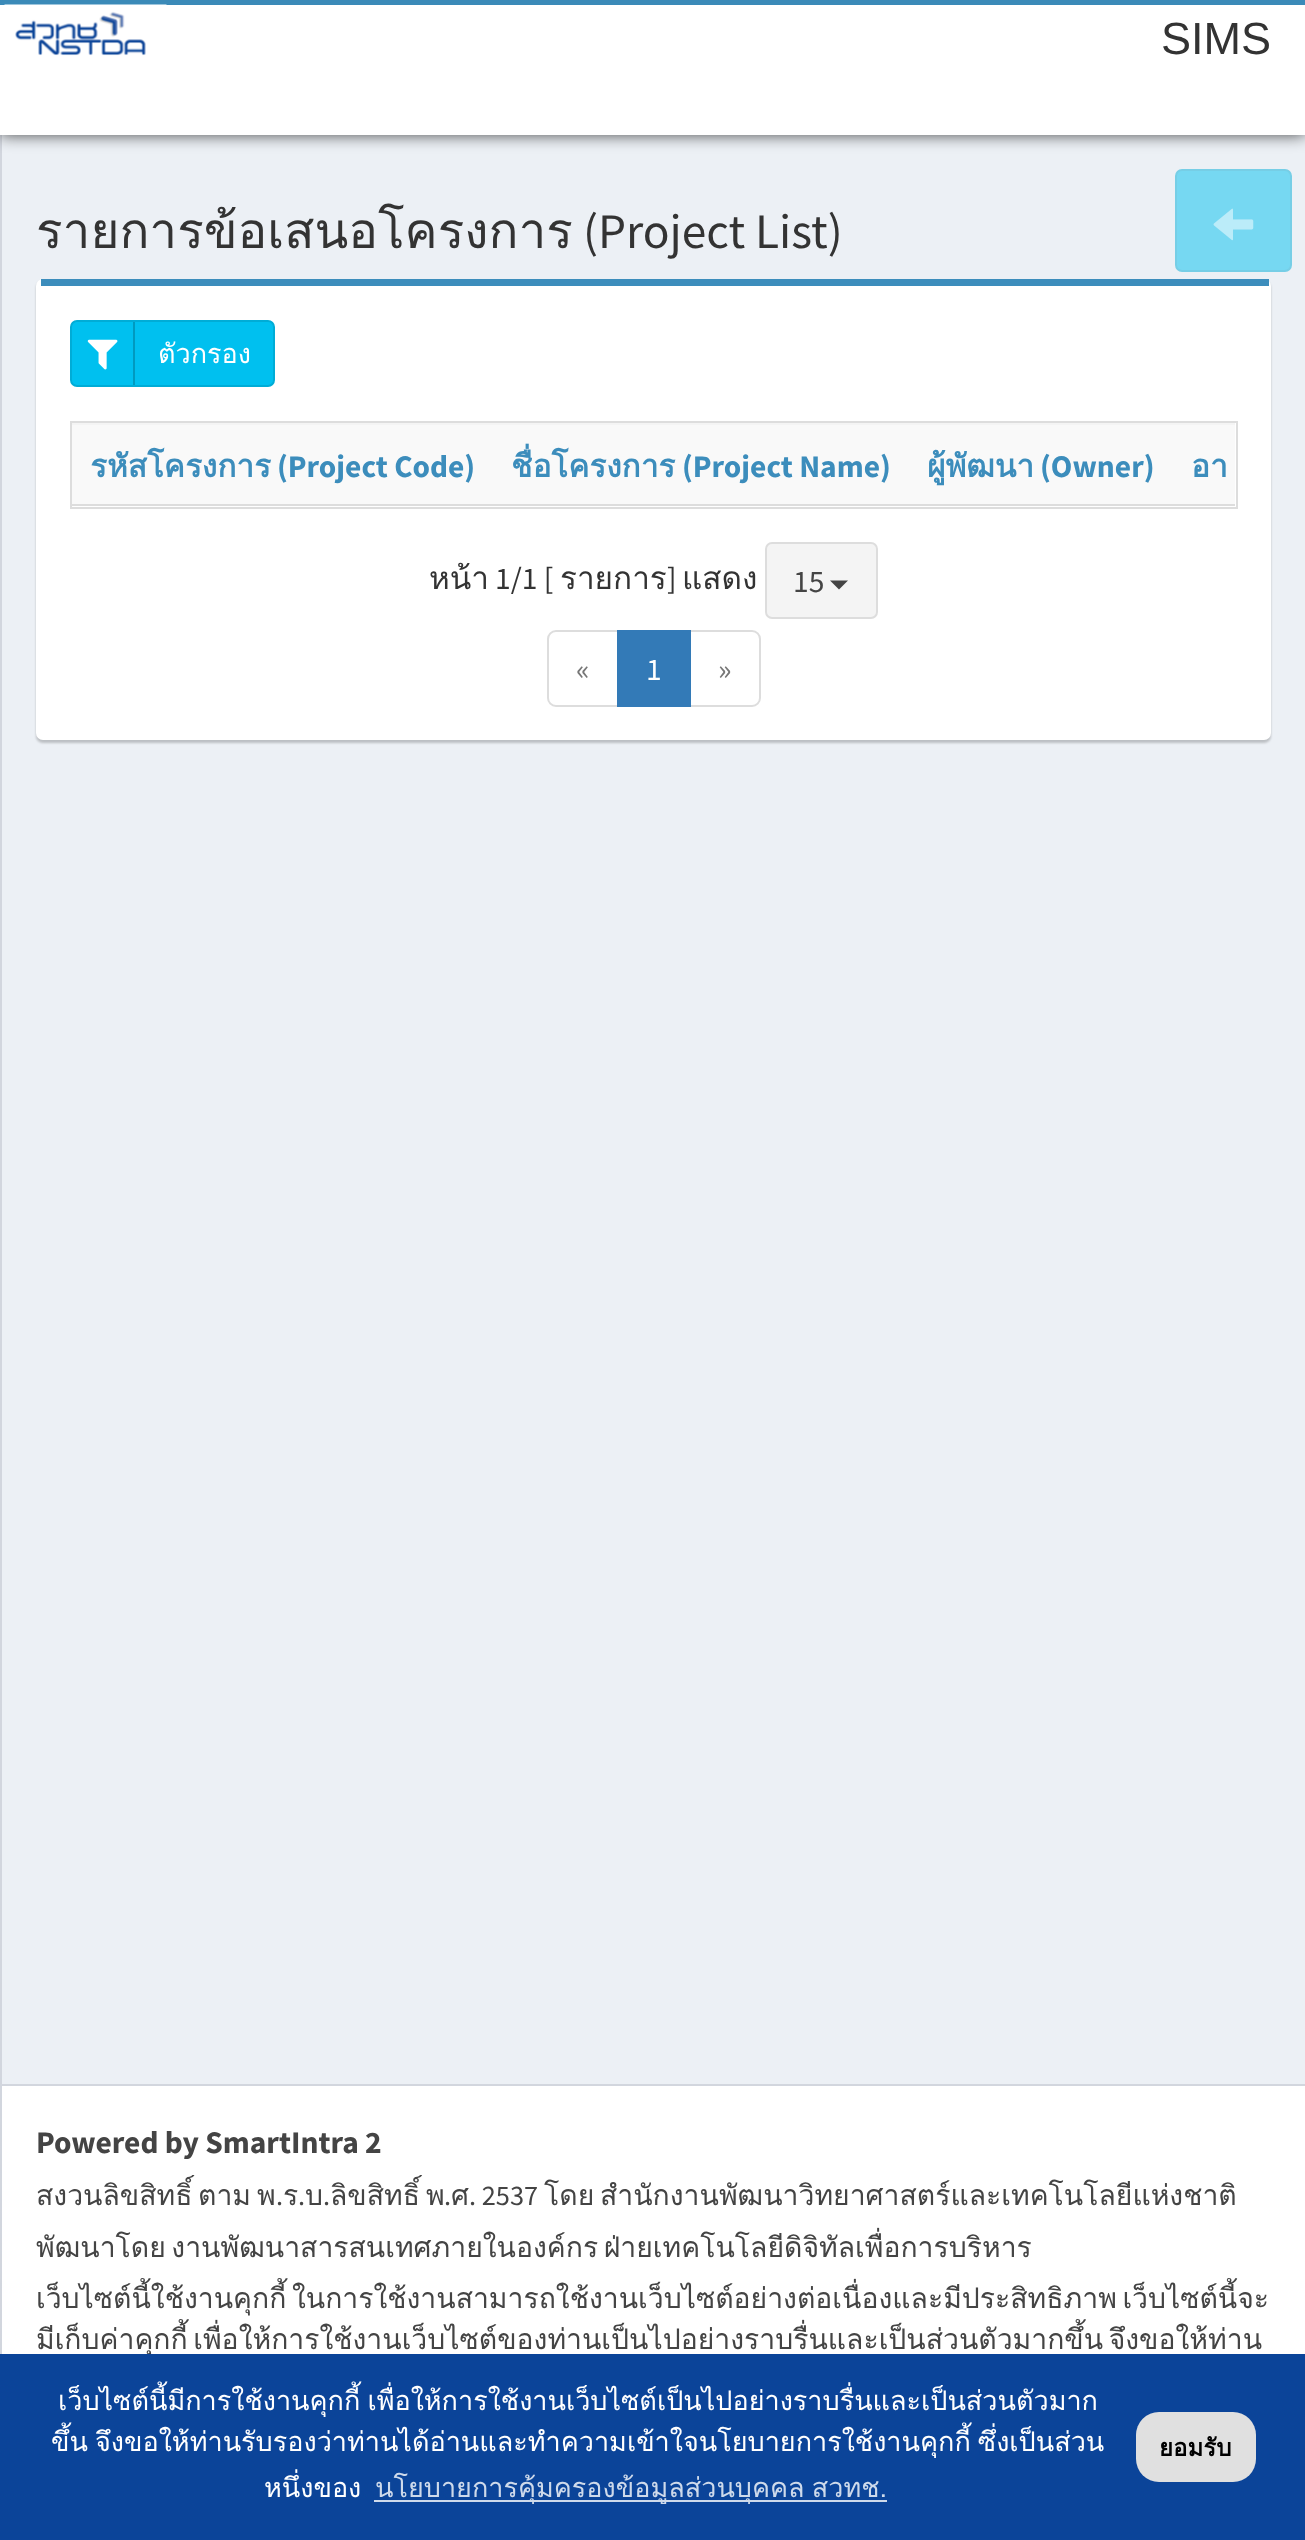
(async () => {
  const canvas = document.querySelector("canvas");
  canvas.width = 1305;
  canvas.height = 2540;
  const ctx = canvas.getContext("2d");
  ctx.miterLimit = 4;
  ctx.fontKerning = "normal";
  async function loadImage(src) {
    const img = new Image();
    img.src = src;
    await img.decode();
    return img;
  }
  let path;

  ctx.fillStyle = "#ecf0f5";
  ctx.fillRect(0, 0, 1305, 2540);
  ctx.fillStyle = "#d2d6de";
  ctx.fillRect(0, 135, 2, 1949);
  ctx.fillStyle = "rgba(0, 0, 0, 0.7)";
  ctx.filter = "blur(8px)";
  ctx.beginPath();
  ctx.rect(0, 0, 1305, 135);
  ctx.fill();
  ctx.filter = "none";
  ctx.fillStyle = "#ffffff";
  ctx.fillRect(0, 5, 1305, 130);
  ctx.fillStyle = "#3b8ab8";
  ctx.fillRect(0, 0, 1305, 5);
  ctx.drawImage(await loadImage("img/1.png"), 4, 4, 163, 52);
  ctx.fillStyle = "rgba(0, 0, 0, 0.2)";
  ctx.filter = "blur(1px)";
  ctx.beginPath();
  ctx.roundRect(36, 281, 1235, 462, 7);
  ctx.fill();
  ctx.filter = "none";
  ctx.fillStyle = "#ffffff";
  ctx.beginPath();
  ctx.roundRect(36, 279, 1235, 461, 7);
  ctx.fill();
  ctx.fillStyle = "#3c8dbc";
  ctx.fillRect(41, 279, 1228, 7);
  ctx.fillStyle = "#00c0ef";
  ctx.beginPath();
  ctx.roundRect(71, 321, 203, 65, 6);
  ctx.fill();
  ctx.strokeStyle = "#00acd6";
  ctx.lineWidth = 2;
  ctx.stroke();
  ctx.fillStyle = "#009abf";
  ctx.fillRect(133, 322, 2, 63);
  ctx.drawImage(await loadImage("img/2.png"), 87, 339, 31, 31);
  ctx.strokeStyle = "#dddddd";
  ctx.strokeRect(71, 422, 1166, 86);
  for (const [x, y, w, h, color] of [
    [72, 425, 1163, 79, "#f9f9f9"],
    [72, 423, 1163, 2, "#f4f4f4"],
    [72, 504, 1163, 2, "#dddddd"],
  ]) {
    ctx.fillStyle = color;
    ctx.fillRect(x, y, w, h);
  }
  ctx.fillStyle = "#f4f4f4";
  ctx.beginPath();
  ctx.roundRect(766, 543, 111, 75, 6);
  ctx.fill();
  ctx.stroke();
  ctx.fillStyle = "#444444";
  path = new Path2D("M830 580.5H848L839 589.5Z");
  ctx.fill(path);
  ctx.beginPath();
  ctx.roundRect(548, 631, 70, 75, [8, 0, 0, 8]);
  ctx.stroke();
  ctx.beginPath();
  ctx.roundRect(690, 631, 70, 75, [0, 8, 8, 0]);
  ctx.stroke();
  ctx.fillStyle = "#337ab7";
  ctx.fillRect(617, 630, 74, 77);
  ctx.fillStyle = "#76d8f2";
  ctx.beginPath();
  ctx.roundRect(1176, 170, 115, 101, 6);
  ctx.fill();
  ctx.strokeStyle = "#76cee6";
  ctx.stroke();
  ctx.drawImage(await loadImage("img/3.png"), 1213, 208, 41, 33);
  for (const [x, y, w, h, color] of [
    [2, 2086, 1303, 268, "#ffffff"],
    [0, 2084, 1305, 2, "#d2d6de"],
    [0, 2084, 2, 270, "#d2d6de"],
  ]) {
    ctx.fillStyle = color;
    ctx.fillRect(x, y, w, h);
  }
  ctx.font = "45px Liberation Sans";
  ctx.fillStyle = "#333333";
  ctx.fillText("SIMS", 1161, 54);
  ctx.font = "49.5px Loma";
  ctx.fillText("รายการข้อเสนอโครงการ", 36, 248);
  ctx.font = "49.5px Source Sans Pro";
  ctx.fillText("(Project List)", 583, 248);
  ctx.font = "27px Loma";
  ctx.fillStyle = "#ffffff";
  ctx.fillText("ตัวกรอง", 158, 363);
  ctx.font = "bold 31.5px Loma";
  ctx.fillStyle = "#3c8dbc";
  ctx.fillText("รหัสโครงการ", 90, 477);
  ctx.font = "bold 31.5px Source Sans Pro";
  ctx.fillText("(Project Code)", 277, 477);
  ctx.font = "bold 31.5px Loma";
  ctx.fillText("ชื่อโครงการ", 511, 477);
  ctx.font = "bold 31.5px Source Sans Pro";
  ctx.fillText("(Project Name)", 682, 477);
  ctx.font = "bold 31.5px Loma";
  ctx.fillText("ผู้พัฒนา", 927, 477);
  ctx.font = "bold 31.5px Source Sans Pro";
  ctx.fillText("(Owner)", 1040, 477);
  ctx.font = "bold 31.5px Loma";
  ctx.fillText("อา", 1191, 477);
  ctx.font = "31.5px Loma";
  ctx.fillStyle = "#333333";
  ctx.fillText("หน้า", 429, 589);
  ctx.font = "31.5px Source Sans Pro";
  ctx.fillText("1/1 [", 495, 589);
  ctx.font = "31.5px Loma";
  ctx.fillText("รายการ", 560, 589);
  ctx.font = "31.5px Source Sans Pro";
  ctx.fillText("]", 667, 589);
  ctx.font = "31.5px Loma";
  ctx.fillText("แสดง", 682, 589);
  ctx.font = "31.5px Source Sans Pro";
  ctx.fillStyle = "#444444";
  ctx.fillText("15", 793, 592);
  ctx.fillStyle = "#777777";
  ctx.fillText("«", 576, 680);
  ctx.fillStyle = "#ffffff";
  ctx.fillText("1", 646, 680);
  ctx.fillStyle = "#777777";
  ctx.fillText("»", 718, 680);
  ctx.font = "bold 31.5px Source Sans Pro";
  ctx.fillStyle = "#444444";
  ctx.fillText("Powered by SmartIntra 2", 36, 2153);
  ctx.font = "28.35px Loma";
  for (const [text, x, y] of [
    ["สงวนลิขสิทธิ์", 36, 2205],
    ["ตาม", 198, 2205],
    ["พ", 257, 2205],
  ]) {
    ctx.fillText(text, x, y);
  }
  ctx.font = "28.35px Source Sans Pro";
  ctx.fillText(".", 276, 2205);
  ctx.font = "28.35px Loma";
  ctx.fillText("ร", 283, 2205);
  ctx.font = "28.35px Source Sans Pro";
  ctx.fillText(".", 298, 2205);
  ctx.font = "28.35px Loma";
  for (const [text, x, y] of [
    ["บ", 305, 2205],
    ["พ", 426, 2205],
    ["ศ", 451, 2205],
  ]) {
    ctx.fillText(text, x, y);
  }
  ctx.font = "28.35px Source Sans Pro";
  ctx.fillText(". 2537", 469, 2205);
  ctx.font = "28.35px Loma";
  ctx.fillText("โดย", 544, 2205);
  ctx.fillText("สำนักงานพัฒนาวิทยาศาสตร์และเทคโนโลยีแห่งชาติ", 600, 2205);
  ctx.font = "28.35px Source Sans Pro";
  ctx.fillText(".", 323, 2205);
  ctx.font = "28.35px Loma";
  ctx.fillText("ลิขสิทธิ์", 330, 2205);
  ctx.font = "28.35px Source Sans Pro";
  ctx.fillText(".", 444, 2205);
  ctx.wordSpacing = "-4px";
  ctx.font = "28.35px Loma";
  for (const [text, x, y] of [
    ["พัฒนาโดย งานพัฒนาสารสนเทศภายในองค์กร ฝ่ายเทคโนโลยีดิจิทัลเพื่อการบริหาร", 36, 2257],
    ["เว็บไซต์นี้ใช้งานคุกกี้ ในการใช้งานสามารถใช้งานเว็บไซต์อย่างต่อเนื่องและมีประสิทธิภาพ เว็บไซต์นี้จะ", 36, 2308],
    ["มีเก็บค่าคุกกี้ เพื่อให้การใช้งานเว็บไซต์ของท่านเป็นไปอย่างราบรื่นและเป็นส่วนตัวมากขึ้น จึงขอให้ท่าน", 36, 2349],
  ]) {
    ctx.fillText(text, x, y);
  }
  ctx.fillStyle = "#0b4499";
  ctx.fillRect(0, 2354, 1305, 186);
  ctx.wordSpacing = "-2px";
  ctx.font = "27px Loma";
  ctx.fillStyle = "#ffffff";
  ctx.fillText("เว็บไซต์นี้มีการใช้งานคุกกี้ เพื่อให้การใช้งานเว็บไซต์เป็นไปอย่างราบรื่นและเป็นส่วนตัวมาก", 58, 2410);
  ctx.fillText("ขึ้น จึงขอให้ท่านรับรองว่าท่านได้อ่านและทำความเข้าใจนโยบายการใช้งานคุกกี้ ซึ่งเป็นส่วน", 51, 2451);
  ctx.wordSpacing = "0px";
  ctx.fillText("หนึ่งของ", 264, 2497);
  ctx.fillStyle = "#cedaeb";
  ctx.fillRect(374, 2500, 513, 2);
  ctx.wordSpacing = "-2px";
  ctx.fillText("นโยบายการคุ้มครองข้อมูลส่วนบุคคล สวทช.", 375, 2497);
  ctx.fillStyle = "#e0e0e0";
  ctx.beginPath();
  ctx.roundRect(1136, 2412, 120, 70, 23);
  ctx.fill();
  ctx.wordSpacing = "0px";
  ctx.font = "bold 24px Loma";
  ctx.fillStyle = "#000000";
  ctx.fillText("ยอมรับ", 1159, 2456);
})();
